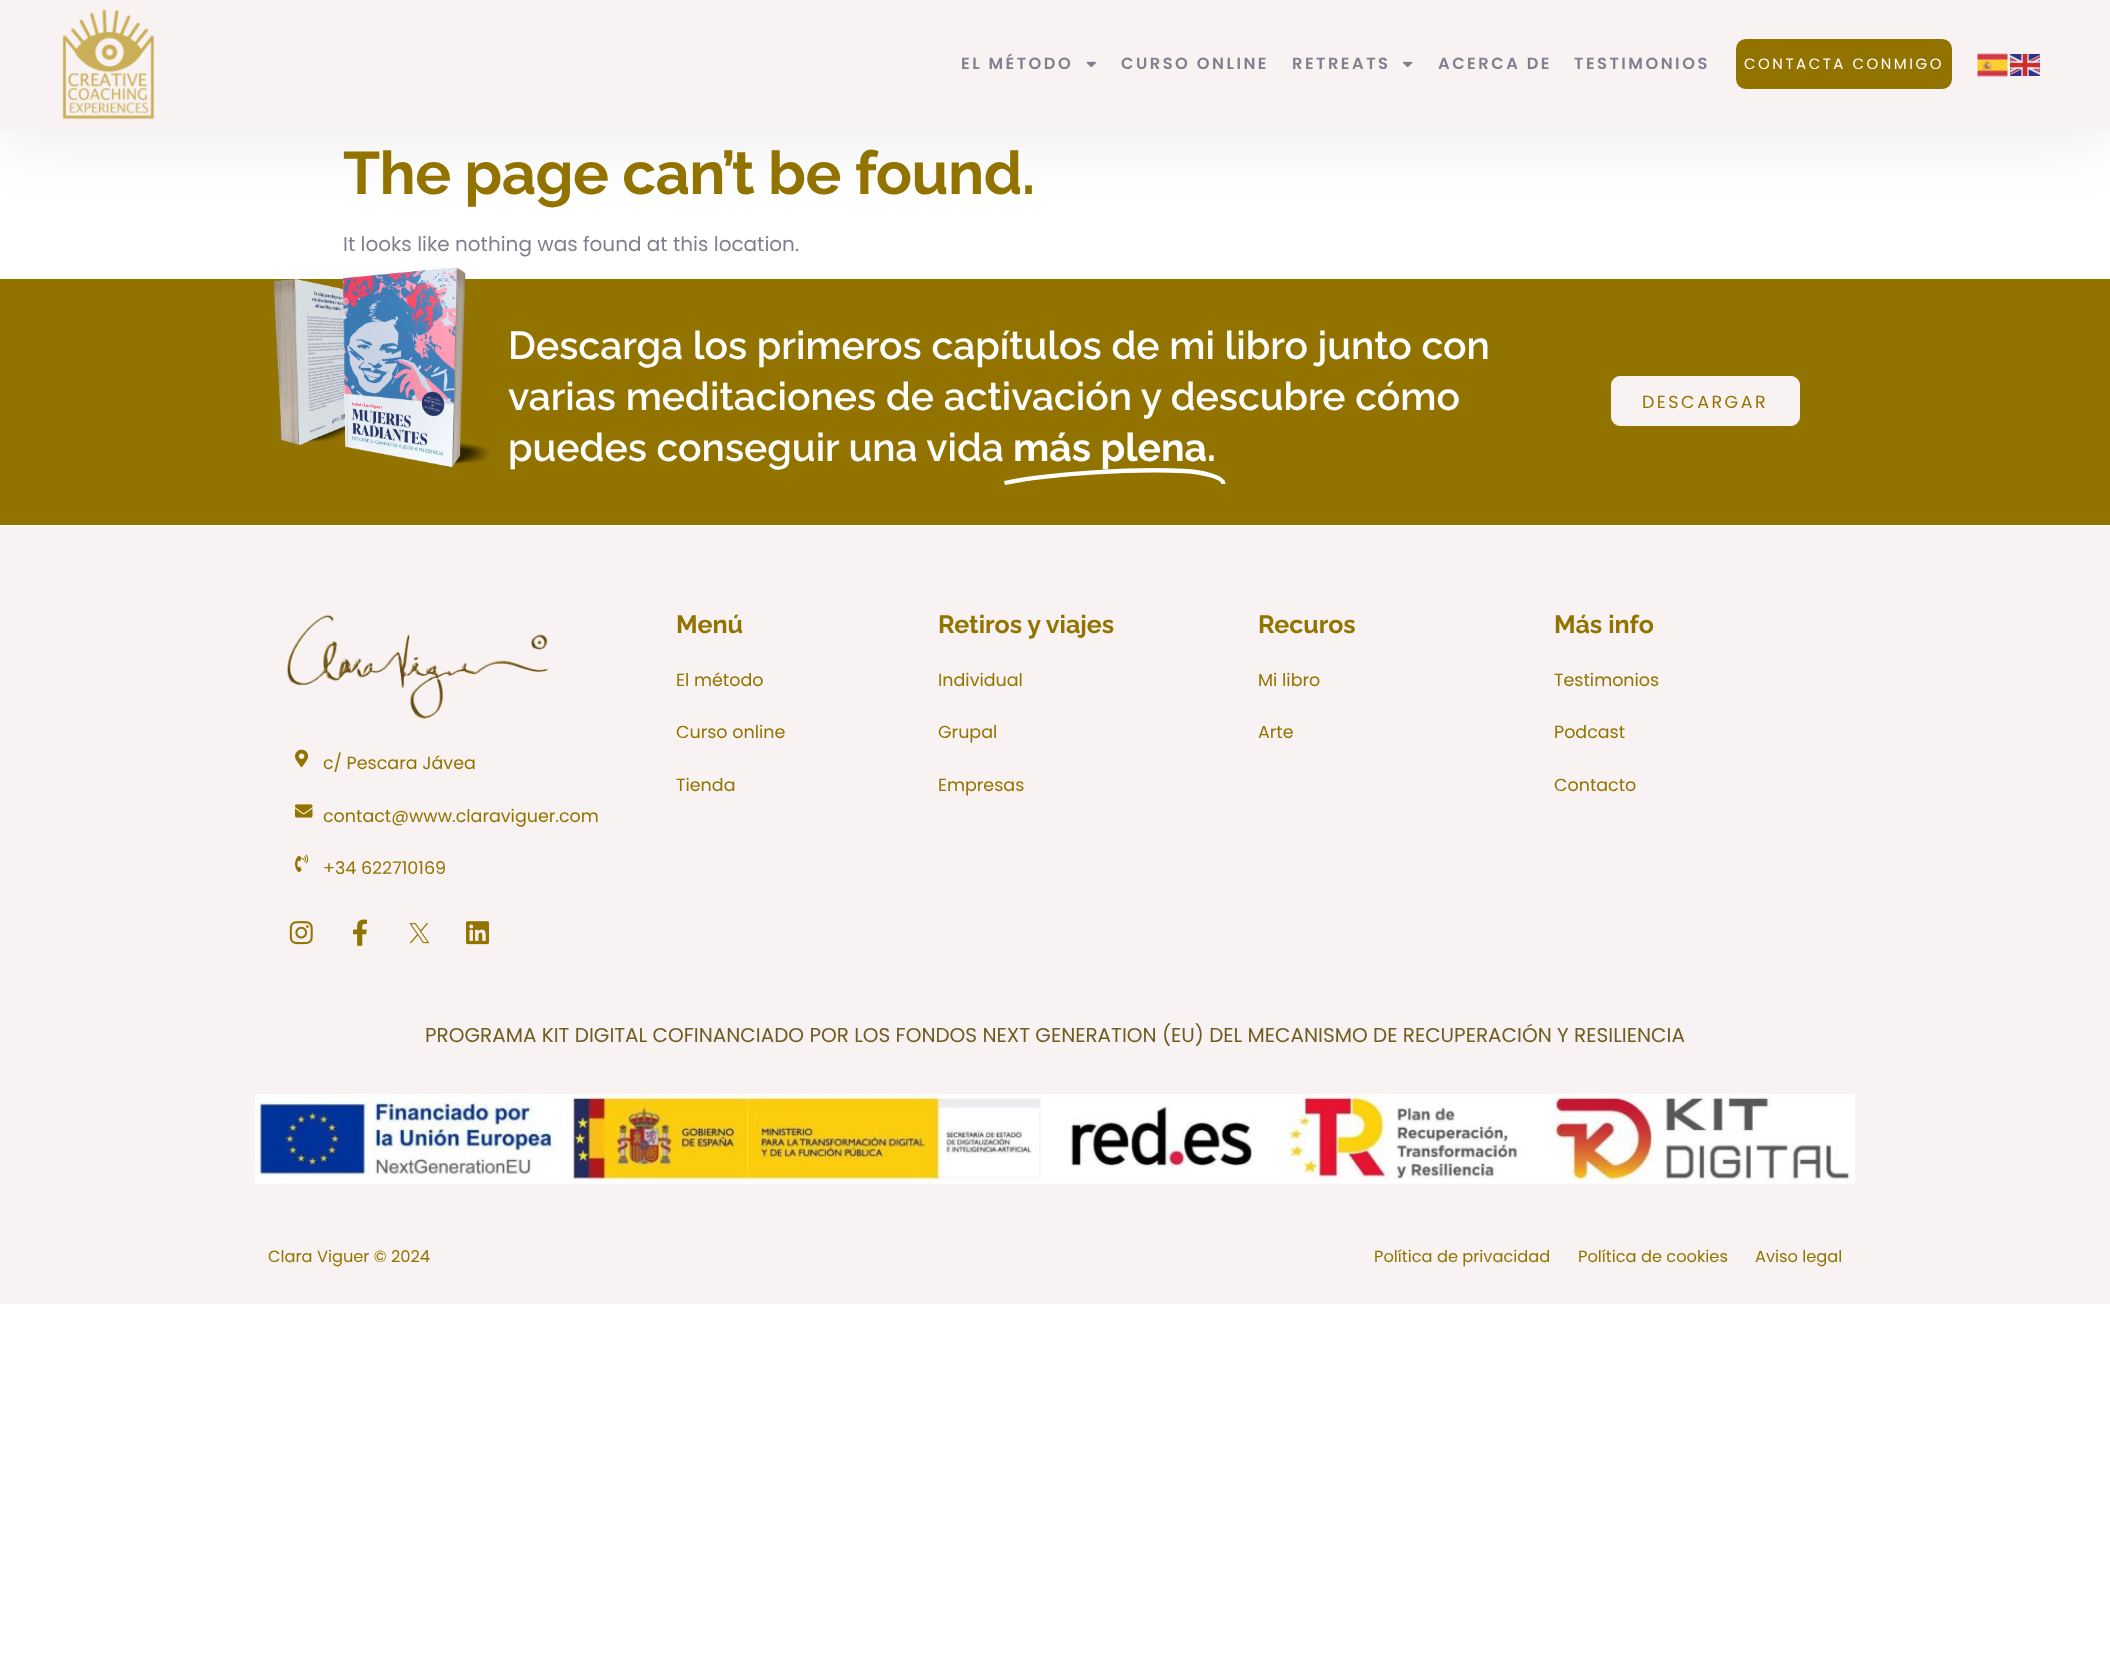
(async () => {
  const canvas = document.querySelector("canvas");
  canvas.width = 2110;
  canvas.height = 1654;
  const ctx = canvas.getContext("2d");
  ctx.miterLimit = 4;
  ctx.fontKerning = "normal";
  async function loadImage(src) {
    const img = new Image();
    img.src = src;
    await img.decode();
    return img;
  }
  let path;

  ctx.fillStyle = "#ffffff";
  ctx.fillRect(0, 0, 2110, 1654);
  ctx.fillStyle = "rgba(0, 0, 0, 0.1)";
  ctx.filter = "blur(37.5px)";
  ctx.beginPath();
  ctx.rect(0, 0, 2110, 129);
  ctx.fill();
  ctx.filter = "none";
  ctx.fillStyle = "#f9f2f2";
  ctx.fillRect(0, 0, 2110, 129);
  ctx.drawImage(await loadImage("img/1.png"), 62, 9, 92, 111);
  ctx.drawImage(await loadImage("img/2.png"), 1086, 61, 10, 7);
  ctx.drawImage(await loadImage("img/3.png"), 1402, 61, 11, 7);
  ctx.fillStyle = "#937300";
  ctx.beginPath();
  ctx.roundRect(1735.5, 38.5, 217, 51, 10.5);
  ctx.fill();
  ctx.strokeStyle = "#f9f2f2";
  ctx.stroke();
  ctx.drawImage(await loadImage("img/4.png"), 1977, 53, 31, 24);
  ctx.drawImage(await loadImage("img/5.png"), 2010, 54, 30, 22);
  ctx.fillRect(0, 279, 2110, 246);
  ctx.drawImage(await loadImage("img/6.png"), 273, 267, 218, 201);
  path = new Path2D("M1004.5 483C1051 473 1137.5 468.5 1184 471C1203 472 1223.5 477 1223.5 484");
  ctx.strokeStyle = "#ffffff";
  ctx.lineWidth = 4.3;
  ctx.stroke(path);
  ctx.fillStyle = "#f9f2f2";
  ctx.beginPath();
  ctx.roundRect(1611.5, 376.5, 188, 49, 8.5);
  ctx.fill();
  ctx.strokeStyle = "#f9f2f2";
  ctx.lineWidth = 1;
  ctx.stroke();
  ctx.fillRect(0, 526, 2110, 778);
  ctx.drawImage(await loadImage("img/7.png"), 286, 614, 263, 105);
  ctx.drawImage(await loadImage("img/8.png"), 295, 749, 14, 19);
  ctx.drawImage(await loadImage("img/9.png"), 295, 804, 18, 14);
  ctx.drawImage(await loadImage("img/10.png"), 295, 854, 14, 19);
  ctx.drawImage(await loadImage("img/11.png"), 289, 921, 24, 24);
  ctx.drawImage(await loadImage("img/12.png"), 352, 919, 16, 27);
  ctx.drawImage(await loadImage("img/13.png"), 409, 923, 21, 21);
  ctx.drawImage(await loadImage("img/14.png"), 466, 921, 23, 24);
  ctx.drawImage(await loadImage("img/15.png"), 255, 1094, 1600, 90);
  ctx.letterSpacing = "2.5px";
  ctx.font = "600 16.25px Poppins";
  ctx.fillStyle = "#7f7f90";
  for (const [text, x, y] of [
    ["EL MÉTODO", 961, 69],
    ["CURSO ONLINE", 1121, 69],
    ["RETREATS", 1292, 69],
    ["ACERCA DE", 1438, 69],
    ["TESTIMONIOS", 1574, 69],
  ]) {
    ctx.fillText(text, x, y);
  }
  ctx.font = "15px Poppins";
  ctx.fillStyle = "#ffffff";
  ctx.fillText("CONTACTA CONMIGO", 1744, 69);
  ctx.letterSpacing = "-0.6px";
  ctx.font = "bold 60px Raleway";
  ctx.fillStyle = "#937300";
  ctx.fillText("The page can’t be found.", 343, 194);
  ctx.letterSpacing = "0px";
  ctx.font = "20px Poppins";
  ctx.fillStyle = "#7f7f90";
  ctx.fillText("It looks like nothing was found at this location.", 343, 251);
  ctx.font = "600 39.05px Raleway";
  ctx.fillStyle = "#ffffff";
  for (const [text, x, y] of [
    ["Descarga los primeros capítulos de mi libro junto con", 508, 359],
    ["varias meditaciones de activación y descubre cómo", 508, 410],
    ["puedes conseguir una vida", 508, 461],
  ]) {
    ctx.fillText(text, x, y);
  }
  ctx.font = "bold 39.05px Raleway";
  ctx.fillText("más plena.", 1013, 461);
  ctx.letterSpacing = "2.5px";
  ctx.font = "17.5px Poppins";
  ctx.fillStyle = "#937300";
  ctx.fillText("DESCARGAR", 1642, 408);
  ctx.letterSpacing = "0px";
  ctx.font = "bold 25px Raleway";
  ctx.fillText("Menú", 676, 633);
  ctx.font = "17.5px Poppins";
  for (const [text, x, y] of [
    ["El método", 676, 686],
    ["Curso online", 676, 738],
    ["Tienda", 676, 791],
  ]) {
    ctx.fillText(text, x, y);
  }
  ctx.font = "bold 25px Raleway";
  ctx.fillText("Retiros y viajes", 938, 633);
  ctx.font = "17.5px Poppins";
  for (const [text, x, y] of [
    ["Individual", 938, 686],
    ["Grupal", 938, 738],
    ["Empresas", 938, 791],
  ]) {
    ctx.fillText(text, x, y);
  }
  ctx.font = "bold 25px Raleway";
  ctx.fillText("Recuros", 1258, 633);
  ctx.font = "17.5px Poppins";
  ctx.fillText("Mi libro", 1258, 686);
  ctx.fillText("Arte", 1258, 738);
  ctx.font = "bold 25px Raleway";
  ctx.fillText("Más info", 1554, 633);
  ctx.font = "17.5px Poppins";
  for (const [text, x, y] of [
    ["Testimonios", 1554, 686],
    ["Podcast", 1554, 738],
    ["Contacto", 1554, 791],
    ["c/ Pescara Jávea", 323, 769],
    ["contact@www.claraviguer.com", 323, 822],
    ["+34 622710169", 323, 874],
  ]) {
    ctx.fillText(text, x, y);
  }
  ctx.font = "20px Poppins";
  ctx.fillStyle = "#705c21";
  ctx.fillText("PROGRAMA KIT DIGITAL COFINANCIADO POR LOS FONDOS NEXT GENERATION (EU) DEL MECANISMO DE RECUPERACIÓN Y RESILIENCIA", 425, 1042);
  ctx.font = "16.25px Poppins";
  ctx.fillStyle = "#937300";
  for (const [text, x, y] of [
    ["Clara Viguer © 2024", 268, 1262],
    ["Política de privacidad", 1374, 1262],
    ["Política de cookies", 1578, 1262],
    ["Aviso legal", 1755, 1262],
  ]) {
    ctx.fillText(text, x, y);
  }
})();
